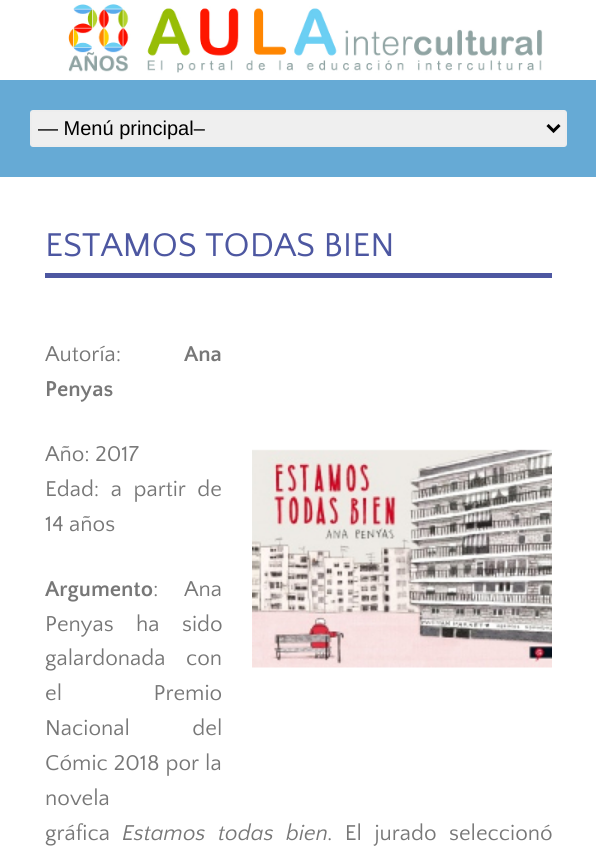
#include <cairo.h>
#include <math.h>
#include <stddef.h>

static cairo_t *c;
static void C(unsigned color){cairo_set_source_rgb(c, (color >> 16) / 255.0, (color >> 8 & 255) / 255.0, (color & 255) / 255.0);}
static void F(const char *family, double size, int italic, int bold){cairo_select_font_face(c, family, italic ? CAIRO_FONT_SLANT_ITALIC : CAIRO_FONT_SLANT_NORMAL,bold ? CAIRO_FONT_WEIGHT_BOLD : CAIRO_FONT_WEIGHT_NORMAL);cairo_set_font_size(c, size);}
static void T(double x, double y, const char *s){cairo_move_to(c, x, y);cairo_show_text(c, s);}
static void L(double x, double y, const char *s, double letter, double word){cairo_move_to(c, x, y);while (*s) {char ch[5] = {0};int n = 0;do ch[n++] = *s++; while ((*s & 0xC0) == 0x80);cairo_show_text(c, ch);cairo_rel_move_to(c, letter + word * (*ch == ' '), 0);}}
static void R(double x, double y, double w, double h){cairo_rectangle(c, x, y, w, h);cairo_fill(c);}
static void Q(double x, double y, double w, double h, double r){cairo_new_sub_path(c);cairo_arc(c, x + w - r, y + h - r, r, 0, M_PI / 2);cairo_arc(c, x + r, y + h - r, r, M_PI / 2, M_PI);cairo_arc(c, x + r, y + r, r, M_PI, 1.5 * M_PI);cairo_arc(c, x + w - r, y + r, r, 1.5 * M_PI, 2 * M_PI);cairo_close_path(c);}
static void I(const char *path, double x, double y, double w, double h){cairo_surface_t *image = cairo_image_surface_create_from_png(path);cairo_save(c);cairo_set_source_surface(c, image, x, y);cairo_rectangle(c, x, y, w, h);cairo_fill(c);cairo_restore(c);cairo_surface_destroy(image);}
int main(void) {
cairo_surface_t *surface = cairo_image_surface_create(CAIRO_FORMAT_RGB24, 596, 858);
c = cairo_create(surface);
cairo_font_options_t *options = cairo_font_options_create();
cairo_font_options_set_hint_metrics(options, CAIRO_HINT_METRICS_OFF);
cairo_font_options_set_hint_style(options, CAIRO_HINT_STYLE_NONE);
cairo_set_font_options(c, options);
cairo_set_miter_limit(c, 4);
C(0xffffff);
cairo_paint(c);
I("1.png",68,4,475,69);
C(0x66aad5);
R(0,80,596,97);
C(0xefefef);
Q(31,111,535,35,2);
cairo_fill_preserve(c);
C(0xededed);
cairo_stroke(c);
cairo_new_path(c);
cairo_move_to(c,547.5,125);
cairo_line_to(c,553.5,131);
cairo_line_to(c,559.5,125);
C(0x000000);
cairo_set_line_width(c,3);
cairo_stroke(c);
F("Liberation Sans",20,0,0);
T(38,135,"— Menú principal–");
C(0x4d57a1);
R(45,273,507,5);
F("Quattrocento Sans",34.5,0,0);
T(45,256,"ESTAMOS TODAS BIEN");
F("Quattrocento Sans",22.5,0,0);
C(0x777777);
T(45,361,"Autoría:");
F("Quattrocento Sans",22.5,0,1);
T(184,361,"Ana");
T(45,396,"Penyas");
I("2.png",252,449,300,219);
F("Quattrocento Sans",22.5,0,0);
T(45,461,"Año: 2017");
L(45,496,"Edad: a partir de",0,6);
T(45,531,"14 años");
F("Quattrocento Sans",22.5,0,1);
T(45,596,"Argumento");
F("Quattrocento Sans",22.5,0,0);
T(153,596,":");
T(184,596,"Ana");
L(45,631,"Penyas ha sido",0,17);
L(45,665,"galardonada con",0,15);
L(45,700,"el Premio",0,86);
L(45,735,"Nacional del",0,57);
L(45,770,"Cómic 2018 por la",0,.5);
T(45,805,"novela");
T(45,840,"gráfica");
F("Quattrocento Sans",22.5,1,0);
L(122,840,"Estamos todas bien",0,7);
F("Quattrocento Sans",22.5,0,0);
L(327,840,". El jurado seleccionó",0,7);
cairo_surface_write_to_png(surface, "o.png");
cairo_font_options_destroy(options);
cairo_destroy(c);
cairo_surface_destroy(surface);
return 0;
}
